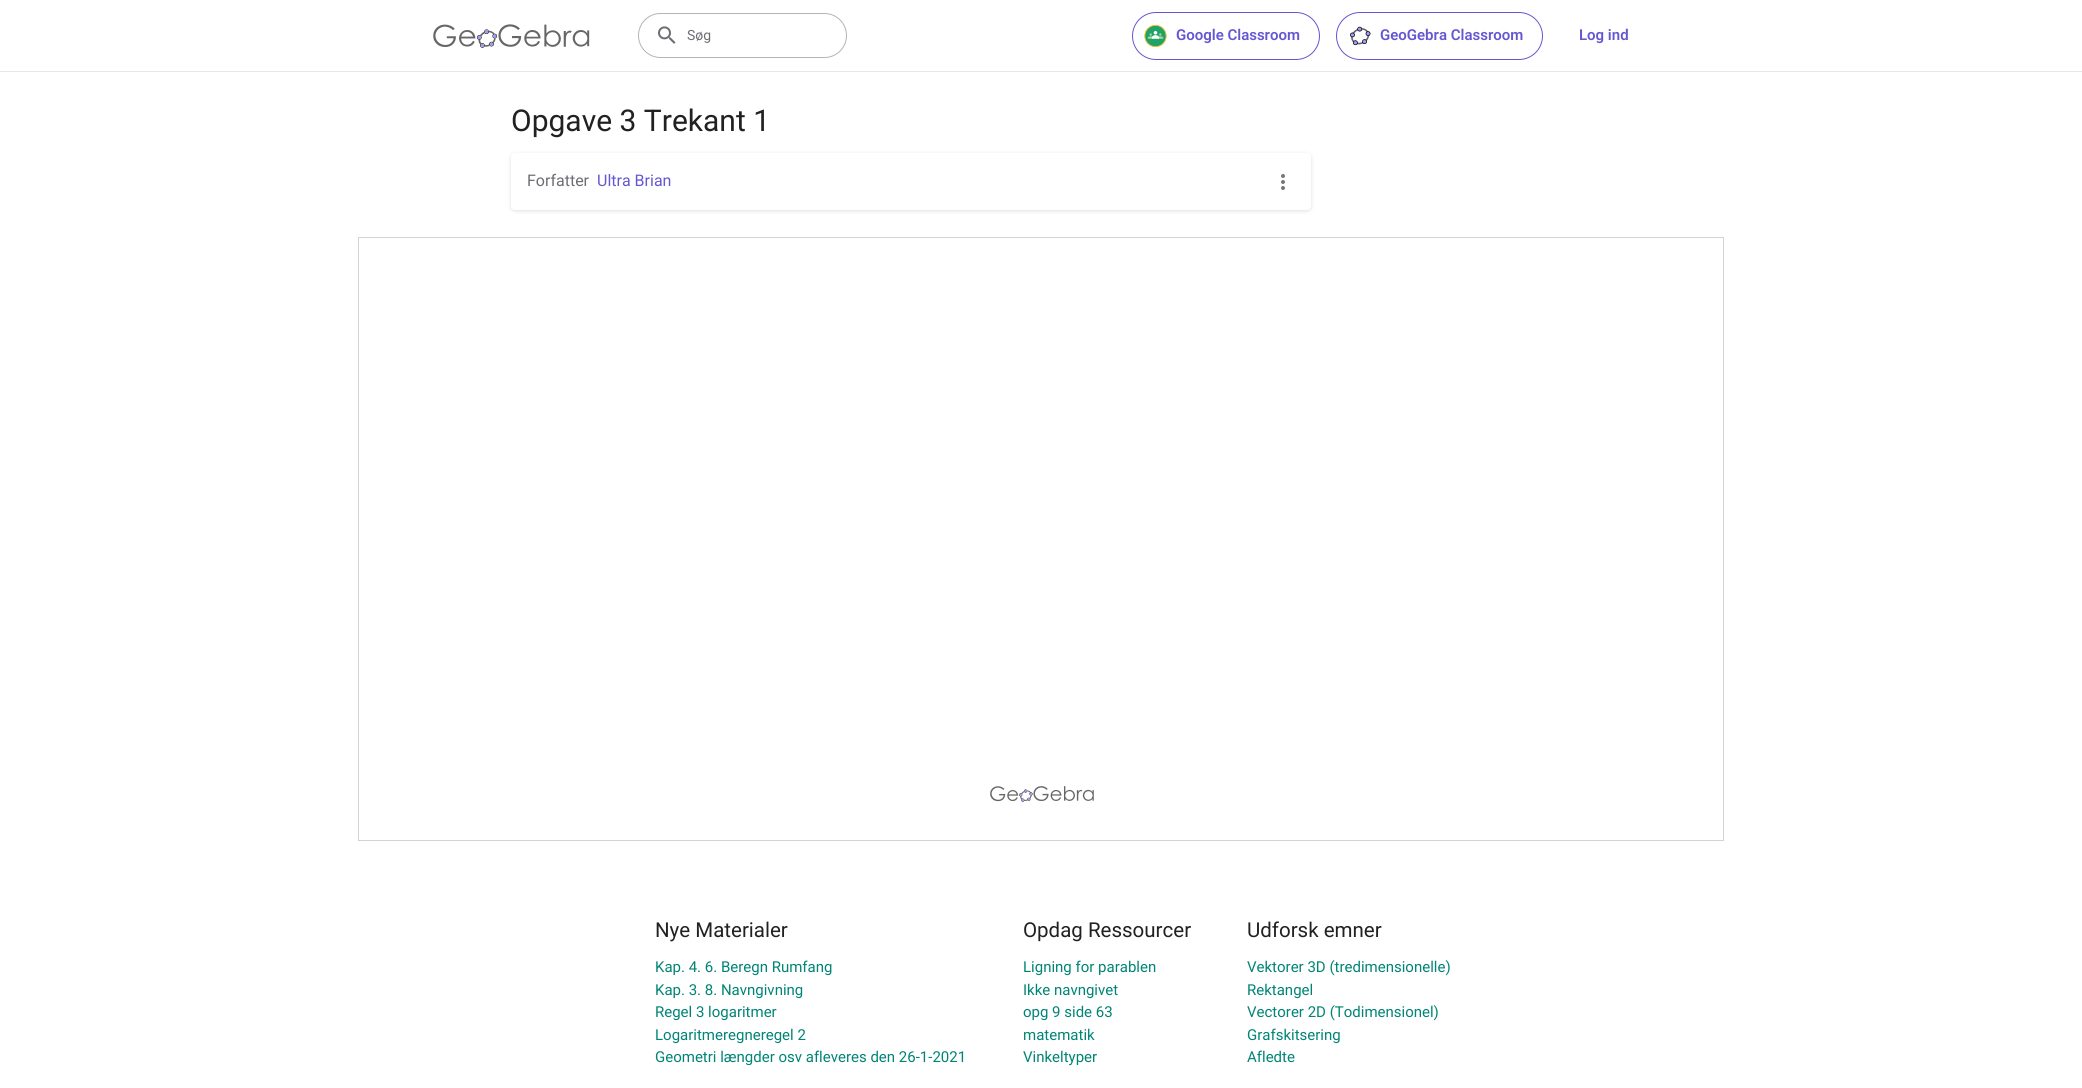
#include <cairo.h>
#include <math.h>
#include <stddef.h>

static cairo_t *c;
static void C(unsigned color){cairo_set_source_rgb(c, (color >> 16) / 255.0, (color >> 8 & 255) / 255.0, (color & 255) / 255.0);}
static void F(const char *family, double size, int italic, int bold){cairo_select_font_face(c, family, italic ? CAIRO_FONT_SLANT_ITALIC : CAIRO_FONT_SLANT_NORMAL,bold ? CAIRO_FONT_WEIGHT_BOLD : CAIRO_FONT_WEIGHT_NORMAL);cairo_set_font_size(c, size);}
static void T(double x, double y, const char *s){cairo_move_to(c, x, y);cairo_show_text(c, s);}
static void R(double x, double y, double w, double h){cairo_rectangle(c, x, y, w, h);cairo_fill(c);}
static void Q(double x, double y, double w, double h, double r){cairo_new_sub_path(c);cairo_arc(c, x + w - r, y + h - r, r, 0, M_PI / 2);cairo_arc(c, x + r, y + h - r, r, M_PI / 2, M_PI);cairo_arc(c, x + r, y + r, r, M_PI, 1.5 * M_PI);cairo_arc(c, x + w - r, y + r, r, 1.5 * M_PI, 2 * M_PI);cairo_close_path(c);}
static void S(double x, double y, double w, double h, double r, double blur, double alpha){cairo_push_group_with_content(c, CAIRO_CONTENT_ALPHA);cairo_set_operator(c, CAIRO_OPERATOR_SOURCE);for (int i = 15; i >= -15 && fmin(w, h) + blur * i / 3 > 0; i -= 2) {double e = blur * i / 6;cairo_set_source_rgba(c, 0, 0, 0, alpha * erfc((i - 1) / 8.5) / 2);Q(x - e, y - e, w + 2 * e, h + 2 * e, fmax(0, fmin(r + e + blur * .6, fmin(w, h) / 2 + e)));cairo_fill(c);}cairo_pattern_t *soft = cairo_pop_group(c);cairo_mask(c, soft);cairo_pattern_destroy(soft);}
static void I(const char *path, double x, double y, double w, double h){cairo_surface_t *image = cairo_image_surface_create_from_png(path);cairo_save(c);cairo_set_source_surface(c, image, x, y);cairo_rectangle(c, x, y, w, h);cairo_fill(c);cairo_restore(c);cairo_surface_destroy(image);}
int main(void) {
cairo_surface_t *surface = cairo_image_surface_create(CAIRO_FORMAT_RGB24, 2082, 1088);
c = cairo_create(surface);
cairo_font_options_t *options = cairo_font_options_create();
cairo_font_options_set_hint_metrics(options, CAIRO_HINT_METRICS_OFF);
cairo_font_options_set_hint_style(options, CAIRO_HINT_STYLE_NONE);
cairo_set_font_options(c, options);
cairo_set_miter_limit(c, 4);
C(0xffffff);
cairo_paint(c);
C(0xe6e6eb);
R(0,71,2082,1);
I("1.png",433,24,157,24);
Q(638.5,13.5,208,44,22);
C(0xb4b3ba);
cairo_set_line_width(c,1);
cairo_stroke(c);
I("2.png",658,26,18,18);
F("Roboto",14,0,0);
C(0x6e6d73);
T(687,40,"Søg");
Q(1132.5,12.5,187,47,23.5);
C(0x6557d2);
cairo_stroke(c);
I("3.png",1144,24,23,24);
F("Roboto SemiBold",15,0,0);
T(1176,40,"Google Classroom");
Q(1336.5,12.5,206,47,23.5);
cairo_stroke(c);
I("4.png",1350,26,21,20);
T(1380,40,"GeoGebra Classroom");
T(1579,40,"Log ind");
F("Roboto",30,0,0);
C(0x212121);
T(511,131,"Opgave 3 Trekant 1");
C(0x1c1c1f);
S(511,154,800,57,4,2,.14);
C(0xffffff);
Q(511,153,800,57,4);
cairo_fill(c);
F("Roboto",16,0,0);
C(0x6e6d73);
T(527,186,"Forfatter");
C(0x6557d2);
T(597,186,"Ultra Brian");
I("5.png",1281,174,4,16);
I("6.png",990,786,104,16);
cairo_rectangle(c,358.5,237.5,1365,603);
C(0xd3d3d3);
cairo_stroke(c);
F("Roboto",20.5,0,0);
C(0x212121);
T(655,937,"Nye Materialer");
F("Roboto",15,0,0);
C(0x008475);
T(655,972,"Kap. 4. 6. Beregn Rumfang");
T(655,995,"Kap. 3. 8. Navngivning");
T(655,1017,"Regel 3 logaritmer");
T(655,1040,"Logaritmeregneregel 2");
T(655,1062,"Geometri længder osv afleveres den 26-1-2021");
F("Roboto",20.5,0,0);
C(0x212121);
T(1023,937,"Opdag Ressourcer");
F("Roboto",15,0,0);
C(0x008475);
T(1023,972,"Ligning for parablen");
T(1023,995,"Ikke navngivet");
T(1023,1017,"opg 9 side 63");
T(1023,1040,"matematik");
T(1023,1062,"Vinkeltyper");
F("Roboto",20.5,0,0);
C(0x212121);
T(1247,937,"Udforsk emner");
F("Roboto",15,0,0);
C(0x008475);
T(1247,972,"Vektorer 3D (tredimensionelle)");
T(1247,995,"Rektangel");
T(1247,1017,"Vectorer 2D (Todimensionel)");
T(1247,1040,"Grafskitsering");
T(1247,1062,"Afledte");
cairo_surface_write_to_png(surface, "o.png");
cairo_font_options_destroy(options);
cairo_destroy(c);
cairo_surface_destroy(surface);
return 0;
}
